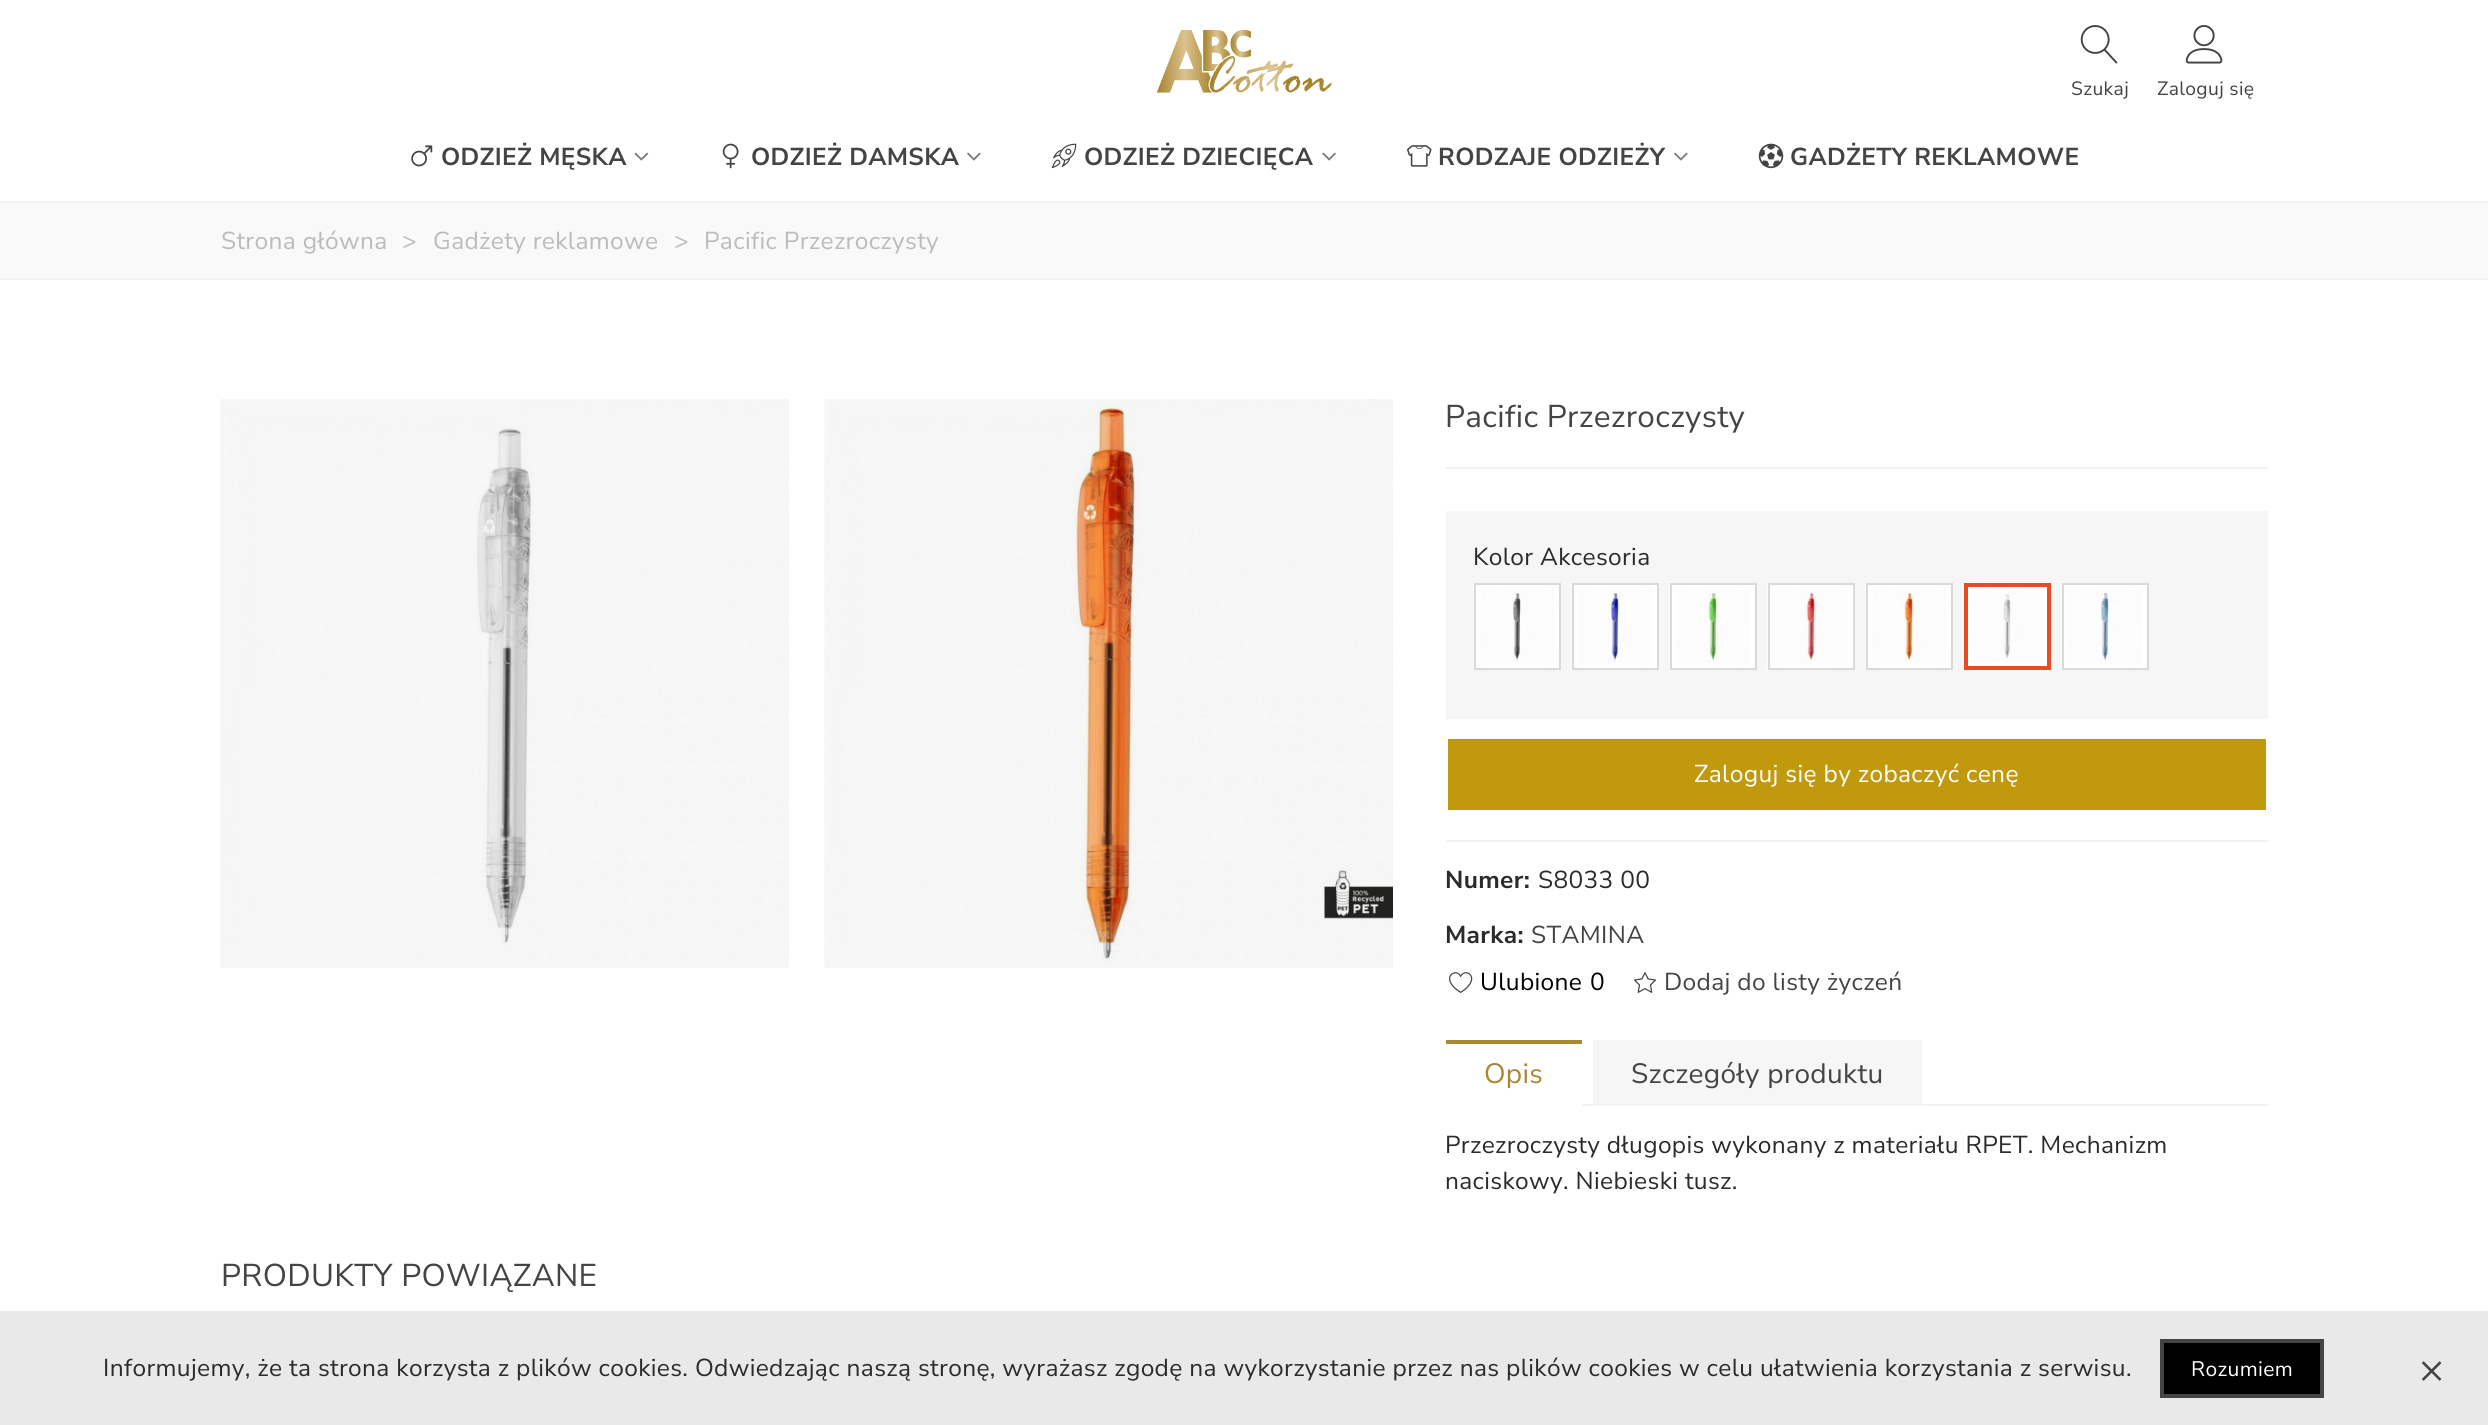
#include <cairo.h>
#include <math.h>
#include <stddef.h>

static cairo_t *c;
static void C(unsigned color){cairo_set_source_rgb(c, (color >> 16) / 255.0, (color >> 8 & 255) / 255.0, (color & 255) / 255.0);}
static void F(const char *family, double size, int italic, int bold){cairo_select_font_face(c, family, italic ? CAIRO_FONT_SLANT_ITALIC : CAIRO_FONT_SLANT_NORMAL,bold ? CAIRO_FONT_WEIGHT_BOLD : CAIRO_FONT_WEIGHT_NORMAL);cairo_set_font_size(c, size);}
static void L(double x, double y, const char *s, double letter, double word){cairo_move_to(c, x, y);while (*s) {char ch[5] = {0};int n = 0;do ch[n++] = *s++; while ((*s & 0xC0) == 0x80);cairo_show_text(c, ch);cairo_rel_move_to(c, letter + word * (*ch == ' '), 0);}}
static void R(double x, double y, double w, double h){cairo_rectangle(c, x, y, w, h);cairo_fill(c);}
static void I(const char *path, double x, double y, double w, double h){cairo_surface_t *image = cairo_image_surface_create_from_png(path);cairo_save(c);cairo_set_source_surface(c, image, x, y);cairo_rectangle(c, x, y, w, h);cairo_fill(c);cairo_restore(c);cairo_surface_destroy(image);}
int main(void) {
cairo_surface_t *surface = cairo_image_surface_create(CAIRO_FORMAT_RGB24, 2488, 1425);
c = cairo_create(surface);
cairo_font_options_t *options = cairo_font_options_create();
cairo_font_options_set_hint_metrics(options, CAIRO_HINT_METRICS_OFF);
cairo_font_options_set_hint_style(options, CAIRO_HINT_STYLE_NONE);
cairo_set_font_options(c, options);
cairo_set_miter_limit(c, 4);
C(0xffffff);
cairo_paint(c);
I("1.png",1157,30,175,63);
I("2.png",2080,25,38,39);
F("Nunito Sans",19.25,0,0);
C(0x444444);
L(2071,95,"Szukaj",.35,0);
I("3.png",2185,25,38,39);
L(2157,95,"Zaloguj się",.35,0);
I("4.png",411,145,22,22);
F("Nunito Sans",24.5,0,1);
L(441,165,"ODZIEŻ MĘSKA",.35,0);
I("5.png",634,152,15,9);
I("6.png",722,143,17,26);
L(751,165,"ODZIEŻ DAMSKA",.35,0);
I("7.png",967,152,14,9);
I("8.png",1051,143,26,26);
L(1084,165,"ODZIEŻ DZIECIĘCA",.35,0);
I("9.png",1322,152,14,9);
I("10.png",1407,145,25,22);
L(1438,165,"RODZAJE ODZIEŻY",.35,0);
I("7.png",1674,152,14,9);
I("11.png",1758,143,26,26);
L(1790,165,"GADŻETY REKLAMOWE",.35,0);
C(0xf9f9f9);
R(0,203,2488,75);
C(0xf3f3f3);
R(0,201,2488,2);
R(0,278,2488,2);
F("Nunito Sans",24.5,0,0);
C(0xbbbbbb);
L(221,249,"Strona główna",.35,0);
L(402,249,">",.35,0);
L(433,249,"Gadżety reklamowe",.35,0);
L(674,249,">",.35,0);
L(704,249,"Pacific Przezroczysty",.35,0);
I("12.png",220,399,569,569);
I("13.png",824,399,569,569);
F("Nunito Sans",31.5,0,0);
C(0x444444);
L(1445,427,"Pacific Przezroczysty",.35,0);
C(0xf2f2f2);
R(1446,467,822,2);
C(0xf6f6f6);
R(1446,511,822,208);
F("Nunito Sans",24.5,0,0);
C(0x2b2b2b);
L(1473,565,"Kolor Akcesoria",.35,0);
I("14.png",1473,583,86,87);
cairo_rectangle(c,1475,584,85,85);
C(0xd9d9d9);
cairo_stroke(c);
I("15.png",1571,583,86,87);
cairo_rectangle(c,1573,584,85,85);
cairo_stroke(c);
I("16.png",1669,583,86,87);
cairo_rectangle(c,1671,584,85,85);
cairo_stroke(c);
I("17.png",1767,583,86,87);
cairo_rectangle(c,1769,584,85,85);
cairo_stroke(c);
I("18.png",1865,583,86,87);
cairo_rectangle(c,1867,584,85,85);
cairo_stroke(c);
I("19.png",1963,583,84,87);
cairo_rectangle(c,1966,585,83,83);
C(0xe54d26);
cairo_set_line_width(c,4);
cairo_stroke(c);
I("20.png",2061,583,86,87);
cairo_rectangle(c,2063,584,85,85);
C(0xd9d9d9);
cairo_set_line_width(c,2);
cairo_stroke(c);
C(0xc0990d);
R(1448,739,818,71);
C(0xffffff);
L(1694,782,"Zaloguj się by zobaczyć cenę",.35,0);
C(0xf2f2f2);
R(1446,840,822,2);
F("Nunito Sans",24.5,0,1);
C(0x2b2b2b);
L(1445,888,"Numer:",.35,0);
F("Nunito Sans",24.5,0,0);
L(1538,888,"S8033 00",.35,0);
F("Nunito Sans",24.5,0,1);
L(1445,943,"Marka:",.35,0);
F("Nunito Sans",24.5,0,0);
C(0x444444);
L(1531,943,"STAMINA",.35,0);
I("21.png",1449,972,24,21);
C(0x000000);
L(1480,990,"Ulubione",.35,0);
L(1590,990,"0",.35,0);
I("22.png",1634,972,22,21);
C(0x444444);
L(1664,990,"Dodaj do listy życzeń",.35,0);
C(0xf2f2f2);
R(1582,1104,686,2);
C(0xa98834);
R(1446,1040,136,4);
F("Nunito Sans",28,0,0);
L(1484,1083,"Opis",.35,0);
C(0xf6f6f6);
R(1593,1040,329,66);
C(0x444444);
L(1631,1083,"Szczegóły produktu",.35,0);
F("Nunito Sans",24.5,0,0);
C(0x2b2b2b);
L(1445,1153,"Przezroczysty długopis wykonany z materiału RPET. Mechanizm",.35,0);
L(1445,1189,"naciskowy. Niebieski tusz.",.35,0);
F("Nunito Sans",31.5,0,0);
C(0x444444);
L(221,1286,"PRODUKTY POWIĄZANE",.35,0);
C(0xe9e9e9);
R(0,1311,2488,114);
F("Nunito Sans",24.5,0,0);
C(0x2b2b2b);
L(103,1376,"Informujemy, że ta strona korzysta z plików cookies. Odwiedzając naszą stronę, wyrażasz zgodę na wykorzystanie przez nas plików cookies w celu ułatwienia korzystania z serwisu.",.35,0);
C(0x000000);
cairo_rectangle(c,2162,1341,160,55);
cairo_fill_preserve(c);
C(0x444444);
cairo_set_line_width(c,4);
cairo_stroke(c);
F("Nunito Sans",21,0,0);
C(0xffffff);
L(2191,1376,"Rozumiem",.35,0);
F("Nunito Sans",42,0,0);
C(0x444444);
L(2419,1383,"×",.35,0);
cairo_surface_write_to_png(surface, "o.png");
cairo_font_options_destroy(options);
cairo_destroy(c);
cairo_surface_destroy(surface);
return 0;
}
